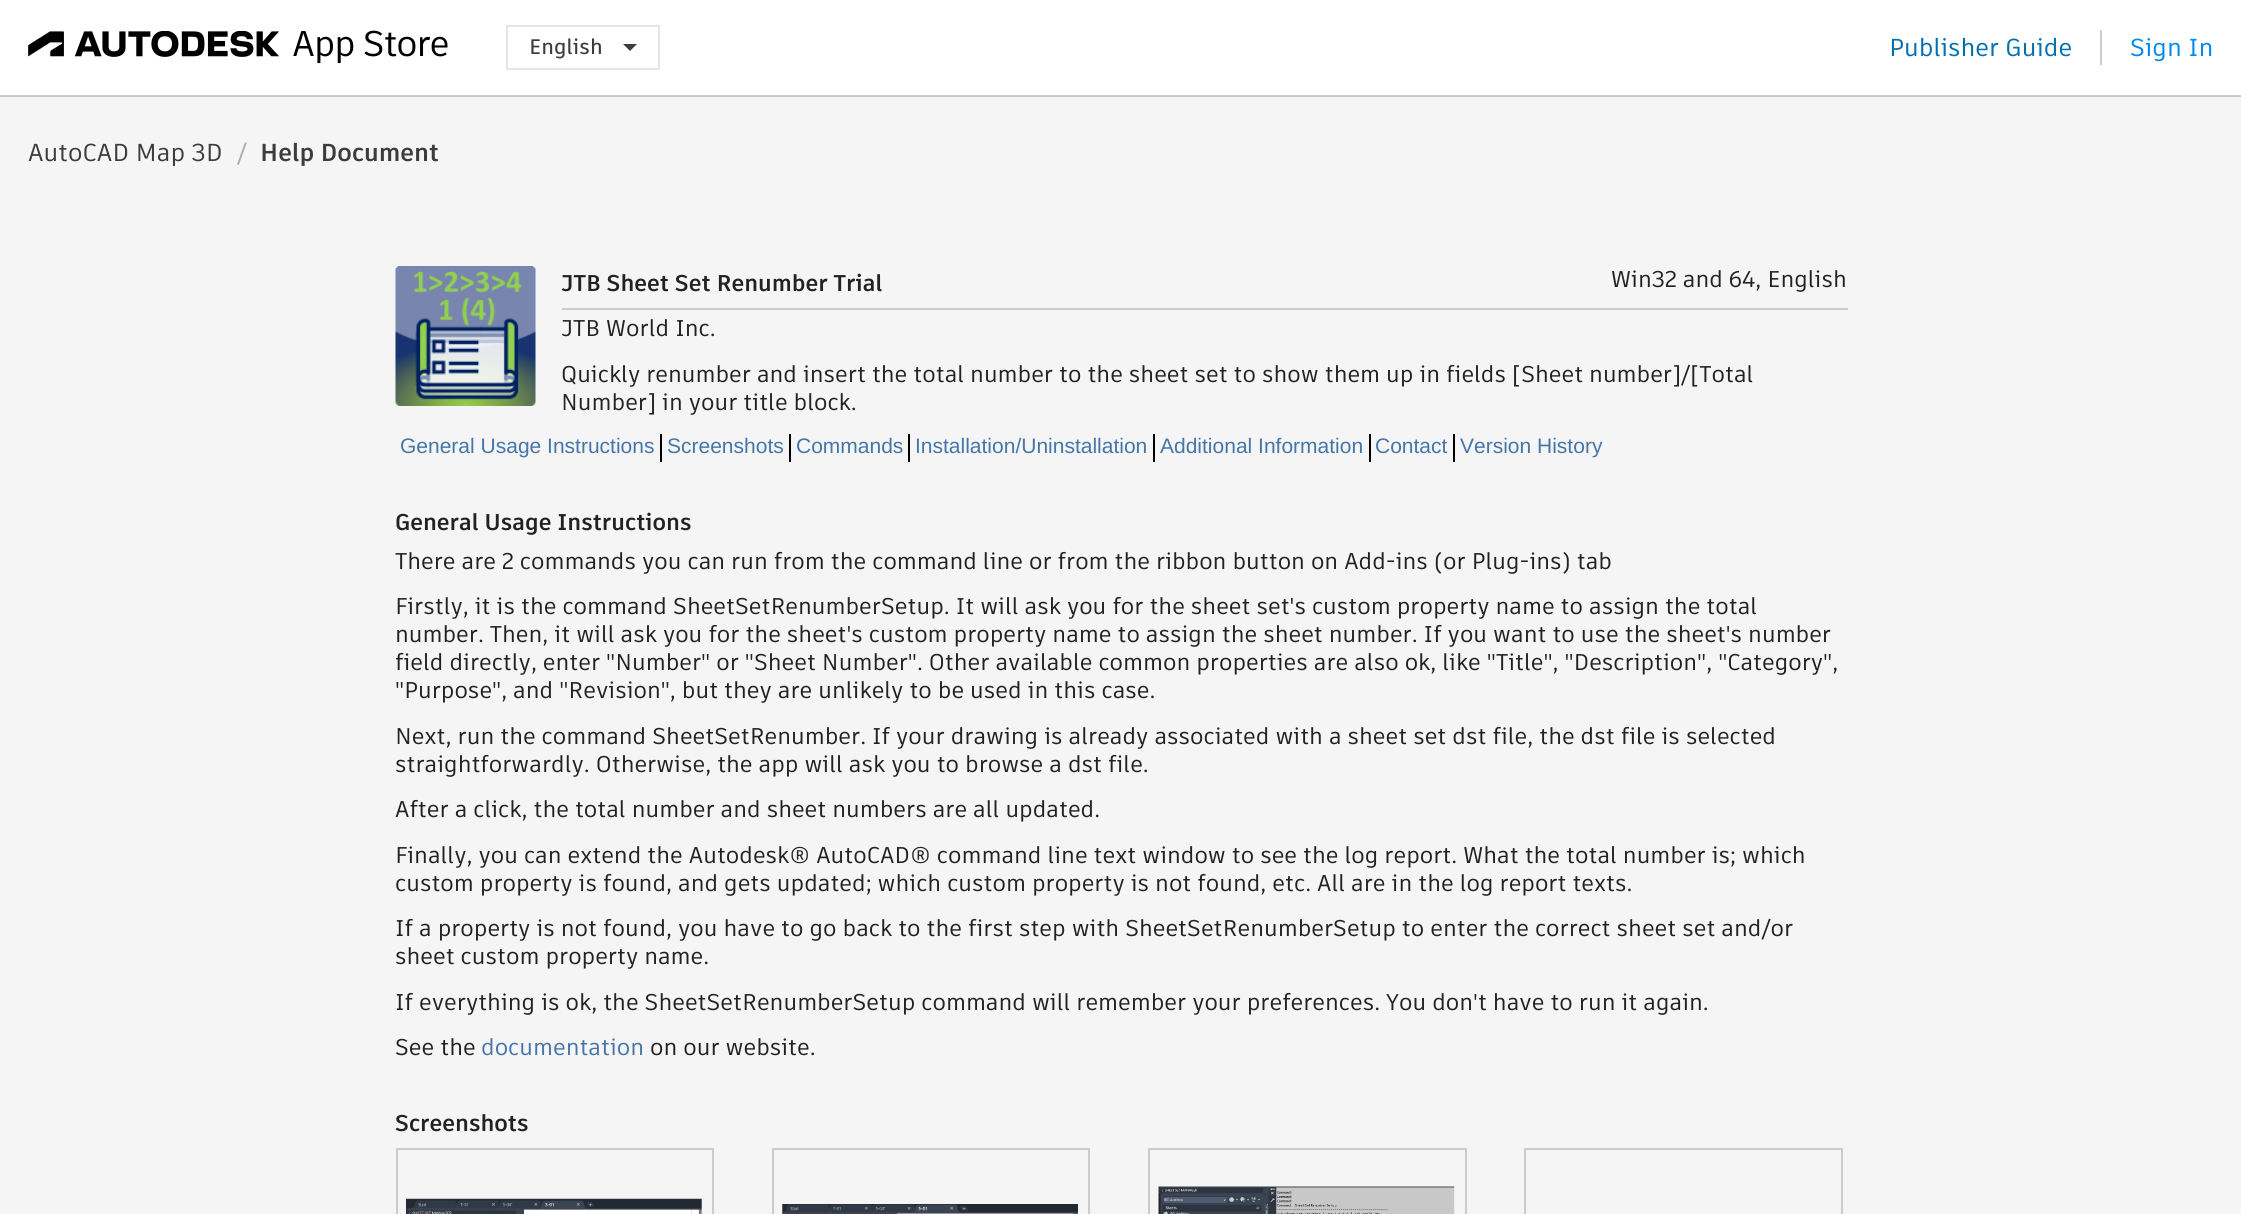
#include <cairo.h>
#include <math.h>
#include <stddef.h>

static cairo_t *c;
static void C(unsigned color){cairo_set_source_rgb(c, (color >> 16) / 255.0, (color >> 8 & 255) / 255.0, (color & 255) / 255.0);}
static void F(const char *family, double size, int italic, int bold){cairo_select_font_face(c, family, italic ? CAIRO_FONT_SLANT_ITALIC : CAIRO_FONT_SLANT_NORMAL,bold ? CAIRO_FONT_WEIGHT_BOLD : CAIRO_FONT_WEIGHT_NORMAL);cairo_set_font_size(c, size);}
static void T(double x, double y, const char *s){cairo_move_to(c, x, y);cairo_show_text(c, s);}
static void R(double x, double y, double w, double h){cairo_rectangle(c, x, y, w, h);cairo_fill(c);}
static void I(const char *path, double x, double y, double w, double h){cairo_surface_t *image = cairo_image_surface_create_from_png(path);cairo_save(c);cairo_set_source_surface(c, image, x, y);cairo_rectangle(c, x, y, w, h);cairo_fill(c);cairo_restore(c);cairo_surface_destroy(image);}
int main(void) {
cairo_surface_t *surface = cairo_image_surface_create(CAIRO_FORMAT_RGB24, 2241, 1214);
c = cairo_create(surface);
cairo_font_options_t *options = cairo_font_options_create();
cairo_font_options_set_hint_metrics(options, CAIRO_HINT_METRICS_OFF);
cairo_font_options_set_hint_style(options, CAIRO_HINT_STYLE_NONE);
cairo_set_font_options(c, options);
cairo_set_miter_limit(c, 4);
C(0xf5f5f5);
cairo_paint(c);
C(0xc7c7c7);
R(0,96,2241,1);
C(0xffffff);
R(0,0,2241,95);
C(0xcecece);
R(0,95,2241,1);
I("1.png",28,30,420,34);
cairo_rectangle(c,507,26,152,43);
C(0xe6e6e6);
cairo_stroke(c);
F("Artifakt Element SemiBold",21,0,0);
C(0x3c3c3c);
T(529,54,"English");
cairo_new_path(c);
cairo_move_to(c,623,44);
cairo_line_to(c,637,44);
cairo_line_to(c,630,51);
cairo_close_path(c);
cairo_fill(c);
C(0xcecece);
R(2100,30,2,35);
F("Artifakt Element Medium",24.5,0,0);
C(0x006eaf);
T(1889,56,"Publisher Guide");
C(0x0088ee);
T(2130,56,"Sign In");
C(0x3c3c3c);
T(28,161,"AutoCAD Map 3D");
C(0xababab);
T(237,161,"/");
F("Artifakt Element",24.5,0,1);
C(0x3c3c3c);
T(260,161,"Help Document");
I("2.png",395,266,141,140);
F("Artifakt Element",22.75,0,1);
C(0x222222);
T(561,291,"JTB Sheet Set Renumber Trial");
F("Artifakt Element Medium",22.75,0,0);
T(1611,287,"Win32 and 64, English");
C(0xcccccc);
R(562,308,1286,2);
C(0x222222);
T(561,336,"JTB World Inc.");
T(561,382,"Quickly renumber and insert the total number to the sheet set to show them up in fields [Sheet number]/[Total");
T(561,410,"Number] in your title block.");
C(0x000000);
R(660,434,2,28);
F("Liberation Sans",21,0,0);
C(0x4675a8);
T(400,453,"General Usage Instructions");
C(0x000000);
R(789,434,2,28);
C(0x4675a8);
T(667,453,"Screenshots");
C(0x000000);
R(908,434,2,28);
C(0x4675a8);
T(796,453,"Commands");
C(0x000000);
R(1153,434,2,28);
C(0x4675a8);
T(915,453,"Installation/Uninstallation");
C(0x000000);
R(1369,434,2,28);
C(0x4675a8);
T(1160,453,"Additional Information");
C(0x000000);
R(1453,434,2,28);
C(0x4675a8);
T(1375,453,"Contact");
T(1460,453,"Version History");
F("Artifakt Element",22.75,0,1);
C(0x222222);
T(395,530,"General Usage Instructions");
F("Artifakt Element Medium",22.75,0,0);
T(395,569,"There are 2 commands you can run from the command line or from the ribbon button on Add-ins (or Plug-ins) tab");
T(395,614,"Firstly, it is the command SheetSetRenumberSetup. It will ask you for the sheet set's custom property name to assign the total");
T(395,642,"number. Then, it will ask you for the sheet's custom property name to assign the sheet number. If you want to use the sheet's number");
T(395,670,"field directly, enter \"Number\" or \"Sheet Number\". Other available common properties are also ok, like \"Title\", \"Description\", \"Category\",");
T(395,698,"\"Purpose\", and \"Revision\", but they are unlikely to be used in this case.");
T(395,744,"Next, run the command SheetSetRenumber. If your drawing is already associated with a sheet set dst file, the dst file is selected");
T(395,772,"straightforwardly. Otherwise, the app will ask you to browse a dst file.");
T(395,817,"After a click, the total number and sheet numbers are all updated.");
T(395,863,"Finally, you can extend the Autodesk® AutoCAD® command line text window to see the log report. What the total number is; which");
T(395,891,"custom property is found, and gets updated; which custom property is not found, etc. All are in the log report texts.");
T(395,936,"If a property is not found, you have to go back to the first step with SheetSetRenumberSetup to enter the correct sheet set and/or");
T(395,964,"sheet custom property name.");
T(395,1010,"If everything is ok, the SheetSetRenumberSetup command will remember your preferences. You don't have to run it again.");
T(395,1055,"See the");
C(0x4675a8);
T(481,1055,"documentation");
C(0x222222);
T(650,1055,"on our website.");
F("Artifakt Element",22.75,0,1);
T(395,1131,"Screenshots");
cairo_rectangle(c,397,1149,316,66);
C(0xcccccc);
cairo_stroke(c);
I("3.png",406,1198,296,16);
cairo_rectangle(c,773,1149,316,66);
cairo_stroke(c);
I("4.png",782,1204,296,10);
cairo_rectangle(c,1149,1149,317,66);
cairo_stroke(c);
I("5.png",1158,1186,297,28);
cairo_rectangle(c,1525,1149,317,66);
cairo_stroke(c);
cairo_surface_write_to_png(surface, "o.png");
cairo_font_options_destroy(options);
cairo_destroy(c);
cairo_surface_destroy(surface);
return 0;
}
